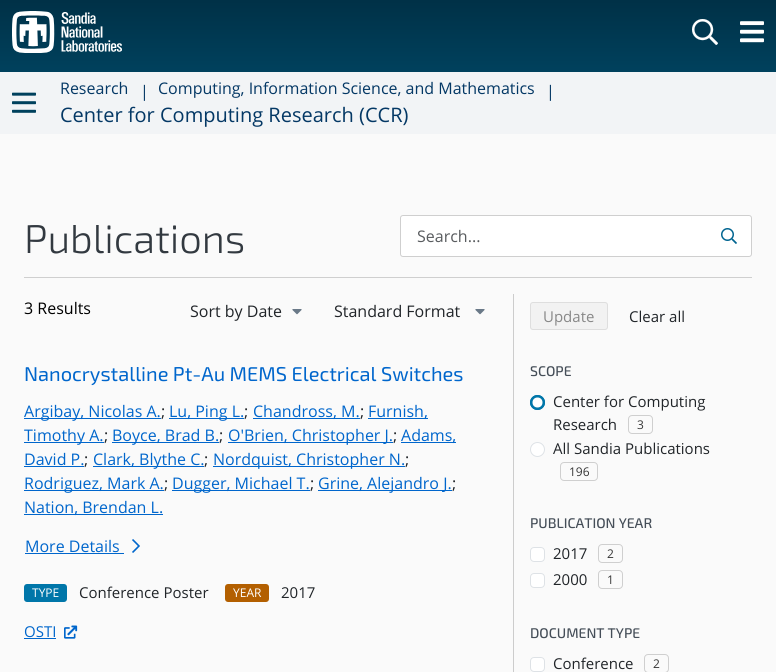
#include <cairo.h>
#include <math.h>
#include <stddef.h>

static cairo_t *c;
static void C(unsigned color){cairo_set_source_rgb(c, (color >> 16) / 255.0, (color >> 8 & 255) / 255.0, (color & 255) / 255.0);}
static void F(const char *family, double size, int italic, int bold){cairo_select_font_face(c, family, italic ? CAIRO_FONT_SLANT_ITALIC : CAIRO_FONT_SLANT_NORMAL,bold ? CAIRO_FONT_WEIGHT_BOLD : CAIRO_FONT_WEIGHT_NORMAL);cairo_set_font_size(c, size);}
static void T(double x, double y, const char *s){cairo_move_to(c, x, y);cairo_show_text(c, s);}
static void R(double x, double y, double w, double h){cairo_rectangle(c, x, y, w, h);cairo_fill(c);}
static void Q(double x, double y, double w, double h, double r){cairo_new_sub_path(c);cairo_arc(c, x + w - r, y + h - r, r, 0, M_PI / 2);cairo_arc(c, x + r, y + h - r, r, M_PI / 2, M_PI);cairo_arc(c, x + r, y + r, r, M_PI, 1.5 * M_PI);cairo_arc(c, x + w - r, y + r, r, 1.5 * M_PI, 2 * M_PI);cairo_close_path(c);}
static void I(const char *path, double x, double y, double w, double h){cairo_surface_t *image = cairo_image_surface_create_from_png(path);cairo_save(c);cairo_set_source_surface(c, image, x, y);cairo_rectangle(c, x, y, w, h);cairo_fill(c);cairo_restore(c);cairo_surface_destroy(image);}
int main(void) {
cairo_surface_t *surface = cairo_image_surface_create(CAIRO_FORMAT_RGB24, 776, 672);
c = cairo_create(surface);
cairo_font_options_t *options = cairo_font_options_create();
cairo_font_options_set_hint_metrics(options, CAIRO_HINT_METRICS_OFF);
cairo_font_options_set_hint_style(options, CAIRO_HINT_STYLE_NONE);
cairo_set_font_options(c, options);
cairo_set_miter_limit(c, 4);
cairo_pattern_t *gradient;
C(0xfafafa);
cairo_paint(c);
gradient = cairo_pattern_create_linear(388,-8,388,72);
cairo_pattern_add_color_stop_rgba(gradient,0,0,0.184,0.267,1);
cairo_pattern_add_color_stop_rgba(gradient,1,0,0.255,0.365,1);
cairo_set_source(c,gradient);
cairo_pattern_destroy(gradient);
R(0,0,776,72);
I("1.png",12,11,110,42);
I("2.png",692,19,26,26);
I("3.png",740,21,24,22);
C(0xf2f4f6);
R(0,72,776,62);
I("4.png",12,92,24,21);
F("Open Sans",16,0,0);
C(0x043865);
T(60,94,"Research");
T(140,97,"|");
T(158,94,"Computing, Information Science, and Mathematics");
T(546,97,"|");
F("Open Sans",20,0,0);
T(60,122,"Center for Computing Research (CCR)");
C(0xcfcfcf);
R(24,277,728,1);
F("Exo 2 Light",40,0,0);
C(0x323940);
T(24,253,"Publications");
C(0xffffff);
Q(400.5,215.5,351,41,2.5);
cairo_fill_preserve(c);
C(0xcfcfcf);
cairo_set_line_width(c,1);
cairo_stroke(c);
F("Open Sans",16,0,0);
C(0x595c5f);
T(417,242,"Search...");
I("5.png",721,228,16,16);
C(0x000000);
T(24,314,"3 Results");
I("6.png",292,309,10,6);
C(0x212529);
T(190,317,"Sort by Date");
I("6.png",475,309,10,6);
T(334,317,"Standard Format");
F("Exo 2",20,0,0);
C(0x0066cc);
T(24,381,"Nanocrystalline Pt-Au MEMS Electrical Switches");
R(24,418,137,1);
F("Open Sans",16,0,0);
T(24,417,"Argibay, Nicolas A.");
C(0x212529);
T(161,417,";");
C(0x0066cc);
R(169,418,75,1);
T(169,417,"Lu, Ping L.");
C(0x212529);
T(244,417,";");
C(0x0066cc);
R(253,418,107,1);
T(253,417,"Chandross, M.");
C(0x212529);
T(360,417,";");
C(0x0066cc);
R(368,418,60,1);
T(368,417,"Furnish,");
R(24,442,80,1);
T(24,441,"Timothy A.");
C(0x212529);
T(104,441,";");
C(0x0066cc);
R(112,442,107,1);
T(112,441,"Boyce, Brad B.");
C(0x212529);
T(219,441,";");
C(0x0066cc);
R(228,442,165,1);
T(228,441,"O'Brien, Christopher J.");
C(0x212529);
T(393,441,";");
C(0x0066cc);
R(401,442,55,1);
T(401,441,"Adams,");
T(24,465,"David P.");
R(24,466,60,1);
C(0x212529);
T(84,465,";");
C(0x0066cc);
R(93,466,111,1);
T(93,465,"Clark, Blythe C.");
C(0x212529);
T(204,465,";");
C(0x0066cc);
R(213,466,192,1);
T(213,465,"Nordquist, Christopher N.");
C(0x212529);
T(405,465,";");
C(0x0066cc);
R(24,490,140,1);
T(24,489,"Rodriguez, Mark A.");
C(0x212529);
T(164,489,";");
C(0x0066cc);
R(172,490,138,1);
T(172,489,"Dugger, Michael T.");
C(0x212529);
T(310,489,";");
C(0x0066cc);
R(318,490,134,1);
T(318,489,"Grine, Alejandro J.");
C(0x212529);
T(452,489,";");
C(0x0066cc);
R(24,514,139,1);
T(24,513,"Nation, Brendan L.");
T(25,552,"More Details");
R(25,553,99,1);
I("7.png",132,539,8,14);
C(0x0076a9);
Q(24,584,43,18,3);
cairo_fill(c);
F("Open Sans",12,0,0);
C(0xffffff);
T(32,597,"TYPE");
F("Open Sans",15,0,0);
C(0x212529);
T(79,598,"Conference Poster");
C(0xb35f00);
Q(225,584,44,18,3);
cairo_fill(c);
F("Open Sans",12,0,0);
C(0xffffff);
T(233,597,"YEAR");
F("Open Sans",15,0,0);
C(0x212529);
T(281,598,"2017");
C(0x0066cc);
T(24,637,"OSTI");
R(24,638,32,1);
I("8.png",64,625,14,14);
C(0xcccccc);
R(513,294,1,378);
C(0xf2f2f2);
Q(530.5,302.5,77,27,2.5);
cairo_fill_preserve(c);
C(0xdedede);
cairo_stroke(c);
C(0x888888);
T(543,322,"Update");
C(0x212529);
T(629,322,"Clear all");
F("Exo 2 Medium",14,0,0);
C(0x454e58);
T(530,376,"SCOPE");
C(0x0076a9);
cairo_new_path(c);
cairo_arc(c,537.5,402.5,7.5,0,2 * M_PI);
cairo_fill(c);
C(0xffffff);
cairo_arc(c,537.5,402.5,5,0,2 * M_PI);
cairo_fill(c);
cairo_arc(c,537.5,402.5,7,0,2 * M_PI);
C(0x0076a9);
cairo_stroke(c);
F("Open Sans",15,0,0);
C(0x212529);
T(553,407,"Center for Computing");
T(553,430,"Research");
F("Open Sans",12,0,0);
C(0x363636);
T(637,429,"3");
Q(628.5,415.5,24,18,3.5);
C(0xcfcfcf);
cairo_stroke(c);
C(0xffffff);
cairo_arc(c,537.5,449.5,7,0,2 * M_PI);
cairo_fill_preserve(c);
C(0xdee2e6);
cairo_stroke(c);
F("Open Sans",15,0,0);
C(0x212529);
T(553,454,"All Sandia Publications");
F("Open Sans",12,0,0);
C(0x363636);
T(569,476,"196");
Q(560.5,462.5,37,18,3.5);
C(0xcfcfcf);
cairo_stroke(c);
F("Exo 2 Medium",14,0,0);
C(0x454e58);
T(530,528,"PUBLICATION YEAR");
C(0xffffff);
Q(530.5,547.5,14,14,3.5);
cairo_fill_preserve(c);
C(0xdee2e6);
cairo_stroke(c);
F("Open Sans",15,0,0);
C(0x212529);
T(553,559,"2017");
F("Open Sans",12,0,0);
C(0x363636);
T(607,558,"2");
Q(598.5,544.5,24,18,3.5);
C(0xcfcfcf);
cairo_stroke(c);
C(0xffffff);
Q(530.5,573.5,14,14,3.5);
cairo_fill_preserve(c);
C(0xdee2e6);
cairo_stroke(c);
F("Open Sans",15,0,0);
C(0x212529);
T(553,585,"2000");
F("Open Sans",12,0,0);
C(0x363636);
T(607,584,"1");
Q(598.5,570.5,24,18,3.5);
C(0xcfcfcf);
cairo_stroke(c);
F("Exo 2 Medium",14,0,0);
C(0x454e58);
T(530,638,"DOCUMENT TYPE");
C(0xffffff);
Q(530.5,657.5,14,14,3.5);
cairo_fill_preserve(c);
C(0xdee2e6);
cairo_stroke(c);
F("Open Sans",15,0,0);
C(0x212529);
T(553,669,"Conference");
F("Open Sans",12,0,0);
C(0x363636);
T(653,668,"2");
Q(644.5,654.5,24,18,3.5);
C(0xcfcfcf);
cairo_stroke(c);
cairo_surface_write_to_png(surface, "o.png");
cairo_font_options_destroy(options);
cairo_destroy(c);
cairo_surface_destroy(surface);
return 0;
}
